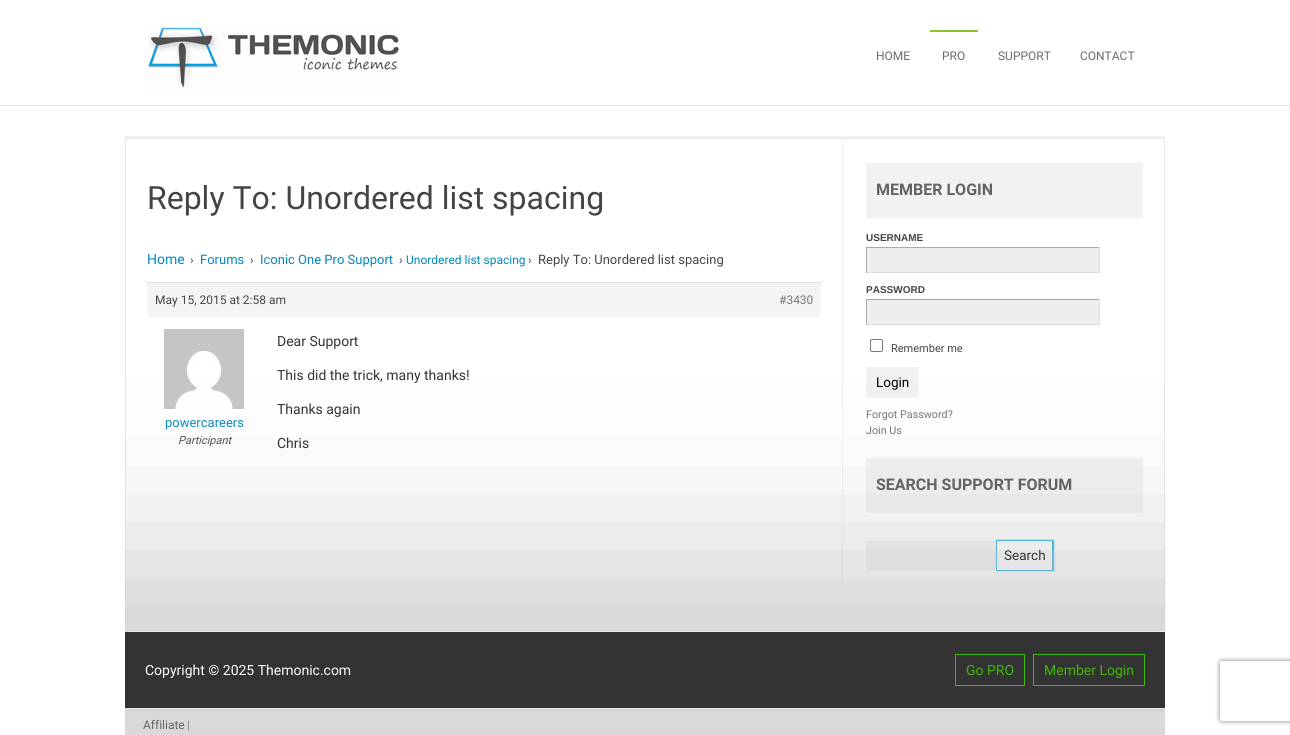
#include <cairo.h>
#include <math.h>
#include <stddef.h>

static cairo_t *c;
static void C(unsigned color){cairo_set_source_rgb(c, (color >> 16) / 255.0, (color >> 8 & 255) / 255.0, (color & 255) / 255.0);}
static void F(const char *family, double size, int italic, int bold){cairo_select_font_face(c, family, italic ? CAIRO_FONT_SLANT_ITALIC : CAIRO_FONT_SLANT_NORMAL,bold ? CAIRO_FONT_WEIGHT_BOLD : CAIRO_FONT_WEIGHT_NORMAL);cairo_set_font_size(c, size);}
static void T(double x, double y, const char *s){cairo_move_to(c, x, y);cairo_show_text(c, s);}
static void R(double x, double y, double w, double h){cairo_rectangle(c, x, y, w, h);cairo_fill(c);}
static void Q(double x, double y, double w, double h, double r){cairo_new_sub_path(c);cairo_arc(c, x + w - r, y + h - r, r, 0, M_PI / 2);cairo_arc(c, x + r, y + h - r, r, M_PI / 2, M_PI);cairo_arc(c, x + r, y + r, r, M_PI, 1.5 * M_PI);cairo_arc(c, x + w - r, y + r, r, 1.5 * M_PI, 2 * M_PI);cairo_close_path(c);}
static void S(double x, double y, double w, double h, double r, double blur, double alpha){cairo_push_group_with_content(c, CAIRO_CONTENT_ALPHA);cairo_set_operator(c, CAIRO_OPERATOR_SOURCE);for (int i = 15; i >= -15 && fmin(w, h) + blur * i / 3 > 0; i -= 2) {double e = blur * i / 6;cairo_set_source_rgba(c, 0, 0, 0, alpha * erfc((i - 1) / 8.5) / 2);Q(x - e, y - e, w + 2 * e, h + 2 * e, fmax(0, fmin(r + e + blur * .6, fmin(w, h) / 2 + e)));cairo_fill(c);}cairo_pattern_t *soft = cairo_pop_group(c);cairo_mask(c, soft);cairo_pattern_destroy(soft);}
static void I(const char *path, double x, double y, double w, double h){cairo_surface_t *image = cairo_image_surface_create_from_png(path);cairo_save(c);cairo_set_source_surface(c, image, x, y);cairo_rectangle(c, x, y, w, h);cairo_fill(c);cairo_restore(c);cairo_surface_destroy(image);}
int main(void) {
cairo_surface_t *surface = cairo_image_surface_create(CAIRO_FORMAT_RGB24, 1290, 735);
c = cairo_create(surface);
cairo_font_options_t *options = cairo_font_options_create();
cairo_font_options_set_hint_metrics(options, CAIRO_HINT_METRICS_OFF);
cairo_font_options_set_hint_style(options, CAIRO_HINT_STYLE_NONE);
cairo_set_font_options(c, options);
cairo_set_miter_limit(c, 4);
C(0xffffff);
cairo_paint(c);
C(0xe1e1e1);
R(0,105,1290,1);
I("1.png",148,27,251,63);
F("Roboto",12,0,0);
C(0x6a6a6a);
T(876,60,"HOME");
C(0x8ac327);
R(930,30,48,2);
C(0x6a6a6a);
T(942,60,"PRO");
T(998,60,"SUPPORT");
T(1080,60,"CONTACT");
C(0xf1f1f1);
R(125,136,1040,2);
cairo_rectangle(c,125.5,138.5,1039,492);
C(0xe9e9e9);
cairo_set_line_width(c,1);
cairo_stroke(c);
C(0xf1f1f1);
R(842,139,1,454);
F("Roboto",32,0,0);
C(0x444444);
T(147,209,"Reply To: Unordered list spacing");
F("Roboto",14,0,0);
C(0x0087bc);
T(147,264,"Home");
F("Roboto",12,0,0);
C(0x444444);
T(190,264,"›");
F("Roboto",13,0,0);
C(0x0087bc);
T(200,264,"Forums");
F("Roboto",12,0,0);
C(0x444444);
T(250,264,"›");
F("Roboto",13,0,0);
C(0x0087bc);
T(260,264,"Iconic One Pro Support");
F("Roboto",12,0,0);
C(0x444444);
T(399,264,"›");
C(0x0087bc);
T(406,264,"Unordered list spacing");
C(0x444444);
T(528,264,"›");
F("Roboto",13,0,0);
T(538,264,"Reply To: Unordered list spacing");
C(0xf4f4f4);
R(147,283,674,34);
C(0xdddddd);
R(147,282,674,1);
F("Roboto",12,0,0);
C(0x444444);
T(155,304,"May 15, 2015 at 2:58 am");
C(0x757575);
T(779,304,"#3430");
I("2.png",164,329,80,80);
F("Roboto",13,0,0);
C(0x0087bc);
T(165,427,"powercareers");
F("Roboto",11,1,0);
C(0x444444);
T(178,444,"Participant");
Q(870.5,339.5,12,12,1.5);
C(0x767676);
cairo_stroke(c);
C(0xf1f1f1);
R(866,367,53,31);
C(0xf2f2f2);
R(866,458,277,55);
C(0xf1f1f1);
R(866,541,130,29);
cairo_save(c);
cairo_set_fill_rule(c,CAIRO_FILL_RULE_EVEN_ODD);
cairo_new_path(c);
cairo_move_to(c,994,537);
cairo_line_to(c,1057,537);
cairo_line_to(c,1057,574);
cairo_line_to(c,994,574);
cairo_close_path(c);
cairo_move_to(c,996,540);
cairo_line_to(c,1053,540);
cairo_line_to(c,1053,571);
cairo_line_to(c,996,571);
cairo_close_path(c);
cairo_clip(c);
C(0x00a1e0);
S(997,540,57,31,0,.5,1);
cairo_restore(c);
cairo_rectangle(c,996.5,540.5,56,30);
C(0x00a1e0);
cairo_stroke(c);
cairo_save(c);
cairo_rectangle(c,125,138,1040,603);
cairo_clip(c);
C(0xcccccc);
S(55,564,1180,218,0,84,1);
cairo_restore(c);
F("Roboto",14,0,0);
C(0x333333);
T(277,346,"Dear Support");
T(277,380,"This did the trick, many thanks!");
T(277,414,"Thanks again");
T(277,448,"Chris");
C(0xf2f2f2);
R(866,163,277,55);
F("Roboto",16,0,1);
C(0x636363);
T(876,195,"MEMBER LOGIN");
F("Liberation Sans",10,0,1);
C(0x444444);
T(866,241,"USERNAME");
C(0xeeeeee);
R(867,248,232,24);
C(0xaaaaaa);
R(866,247,234,1);
C(0xdddddd);
R(1099,247,1,26);
R(866,272,234,1);
C(0xaaaaaa);
R(866,247,1,26);
C(0x444444);
T(866,293,"PASSWORD");
C(0xeeeeee);
R(867,300,232,24);
C(0xaaaaaa);
R(866,299,234,1);
C(0xdddddd);
R(1099,299,1,26);
R(866,324,234,1);
C(0xaaaaaa);
R(866,299,1,26);
F("Roboto",11,0,0);
C(0x444444);
T(891,352,"Remember me");
F("Roboto",13.5,0,0);
C(0x000000);
T(876,387,"Login");
F("Roboto",10.75,0,0);
C(0x757575);
T(866,418,"Forgot Password?");
T(866,434,"Join Us");
F("Roboto",16,0,1);
C(0x636363);
T(876,490,"SEARCH SUPPORT FORUM");
F("Roboto",13.5,0,0);
C(0x333333);
T(1004,560,"Search");
R(125,632,1040,76);
C(0xededed);
R(125,631,1040,1);
C(0xe9e9e9);
R(125,708,1040,1);
F("Roboto",14,0,0);
C(0xffffff);
T(145,675,"Copyright © 2025 Themonic.com");
cairo_rectangle(c,955.5,654.5,69,31);
C(0x40b70b);
cairo_stroke(c);
T(966,675,"Go PRO");
cairo_rectangle(c,1033.5,654.5,111,31);
cairo_stroke(c);
T(1044,675,"Member Login");
F("Roboto",12,0,0);
C(0x636363);
T(143,729,"Affiliate");
C(0x888888);
T(187,729,"|");
cairo_save(c);
cairo_set_fill_rule(c,CAIRO_FILL_RULE_EVEN_ODD);
cairo_new_path(c);
cairo_move_to(c,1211,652);
cairo_line_to(c,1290,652);
cairo_line_to(c,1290,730);
cairo_line_to(c,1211,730);
cairo_close_path(c);
cairo_move_to(c,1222,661);
cairo_line_to(c,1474,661);
cairo_curve_to(c,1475,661,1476,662,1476,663);
cairo_line_to(c,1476,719);
cairo_curve_to(c,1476,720,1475,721,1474,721);
cairo_line_to(c,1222,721);
cairo_curve_to(c,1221,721,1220,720,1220,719);
cairo_line_to(c,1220,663);
cairo_curve_to(c,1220,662,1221,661,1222,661);
cairo_close_path(c);
cairo_clip(c);
C(0x808080);
S(1220,661,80,60,2,2.5,1);
cairo_restore(c);
cairo_surface_write_to_png(surface, "o.png");
cairo_font_options_destroy(options);
cairo_destroy(c);
cairo_surface_destroy(surface);
return 0;
}
